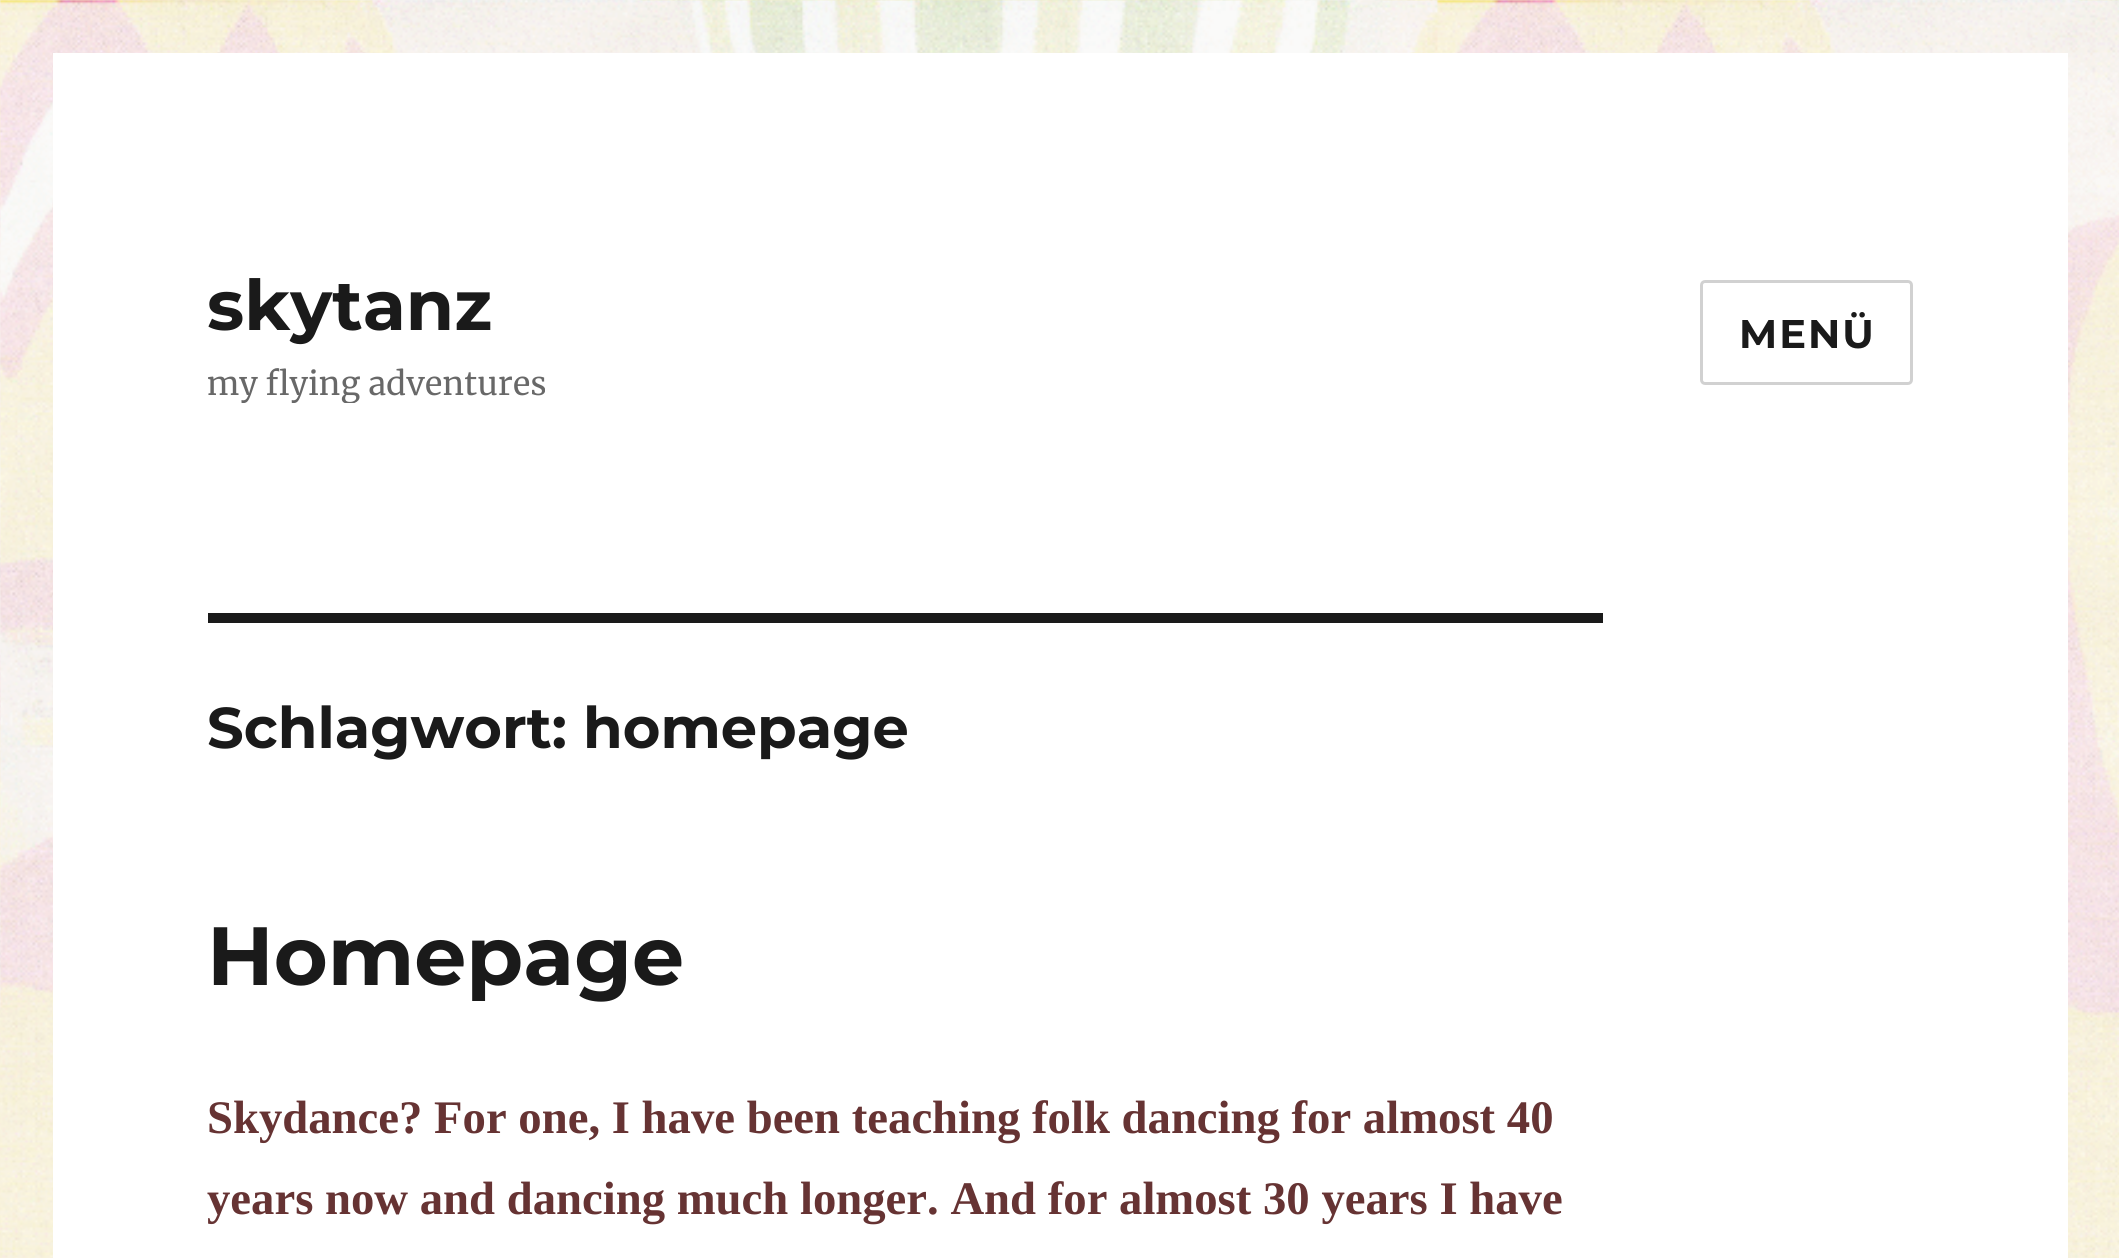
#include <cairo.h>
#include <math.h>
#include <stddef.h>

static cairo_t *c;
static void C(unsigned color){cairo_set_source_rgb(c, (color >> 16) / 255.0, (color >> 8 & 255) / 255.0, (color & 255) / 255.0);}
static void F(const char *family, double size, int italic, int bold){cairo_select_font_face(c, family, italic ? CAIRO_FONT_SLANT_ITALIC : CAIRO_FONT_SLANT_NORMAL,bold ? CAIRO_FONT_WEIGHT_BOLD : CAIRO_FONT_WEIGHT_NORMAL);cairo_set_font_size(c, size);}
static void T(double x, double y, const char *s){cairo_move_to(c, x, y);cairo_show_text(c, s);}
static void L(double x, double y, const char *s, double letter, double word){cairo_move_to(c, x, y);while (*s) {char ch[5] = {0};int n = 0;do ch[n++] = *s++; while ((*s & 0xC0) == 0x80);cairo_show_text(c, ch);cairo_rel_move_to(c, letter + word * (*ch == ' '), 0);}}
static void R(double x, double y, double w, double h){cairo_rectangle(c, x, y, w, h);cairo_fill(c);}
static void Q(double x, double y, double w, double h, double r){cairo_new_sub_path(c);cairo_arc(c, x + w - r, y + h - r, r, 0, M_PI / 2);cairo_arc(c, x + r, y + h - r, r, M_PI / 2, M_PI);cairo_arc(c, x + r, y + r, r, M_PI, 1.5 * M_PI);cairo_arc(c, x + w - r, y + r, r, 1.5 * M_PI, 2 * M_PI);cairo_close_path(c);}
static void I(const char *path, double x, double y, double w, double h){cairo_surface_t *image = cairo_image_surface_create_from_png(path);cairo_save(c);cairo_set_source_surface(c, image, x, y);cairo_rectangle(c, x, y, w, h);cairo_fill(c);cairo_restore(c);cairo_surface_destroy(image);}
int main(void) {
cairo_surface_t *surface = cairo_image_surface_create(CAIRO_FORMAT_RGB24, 2119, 1258);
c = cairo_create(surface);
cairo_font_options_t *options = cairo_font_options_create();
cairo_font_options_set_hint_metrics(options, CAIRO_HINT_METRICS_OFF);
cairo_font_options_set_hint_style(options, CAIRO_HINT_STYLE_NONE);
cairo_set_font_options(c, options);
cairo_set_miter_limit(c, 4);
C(0xffffff);
cairo_paint(c);
I("1.png",0,0,2119,1258);
C(0xffffff);
R(53,53,2015,1205);
F("Montserrat Thin",70,0,0);
C(0x1a1a1a);
T(207,330,"skytanz");
cairo_save(c);
cairo_rectangle(c,208,263,340,140);
cairo_clip(c);
F("Merriweather",32.5,0,0);
C(0x686868);
T(207,395,"my flying adventures");
cairo_restore(c);
Q(1701.5,281.5,210,102,3.5);
C(0xd1d1d1);
cairo_set_line_width(c,3);
cairo_stroke(c);
F("Montserrat Thin",40,0,0);
C(0x1a1a1a);
L(1739,348,"MENÜ",2,0);
R(208,613,1395,10);
F("Montserrat Thin",57.5,0,0);
T(207,748,"Schlagwort: homepage");
F("Montserrat Thin",82.5,0,0);
T(207,985,"Homepage");
F("Liberation Serif",46.7,0,1);
C(0x663333);
T(207,1133,"Skydance? For one, I have been teaching folk dancing for almost 40");
T(207,1214,"years now and dancing much longer. And for almost 30 years I have");
cairo_surface_write_to_png(surface, "o.png");
cairo_font_options_destroy(options);
cairo_destroy(c);
cairo_surface_destroy(surface);
return 0;
}
